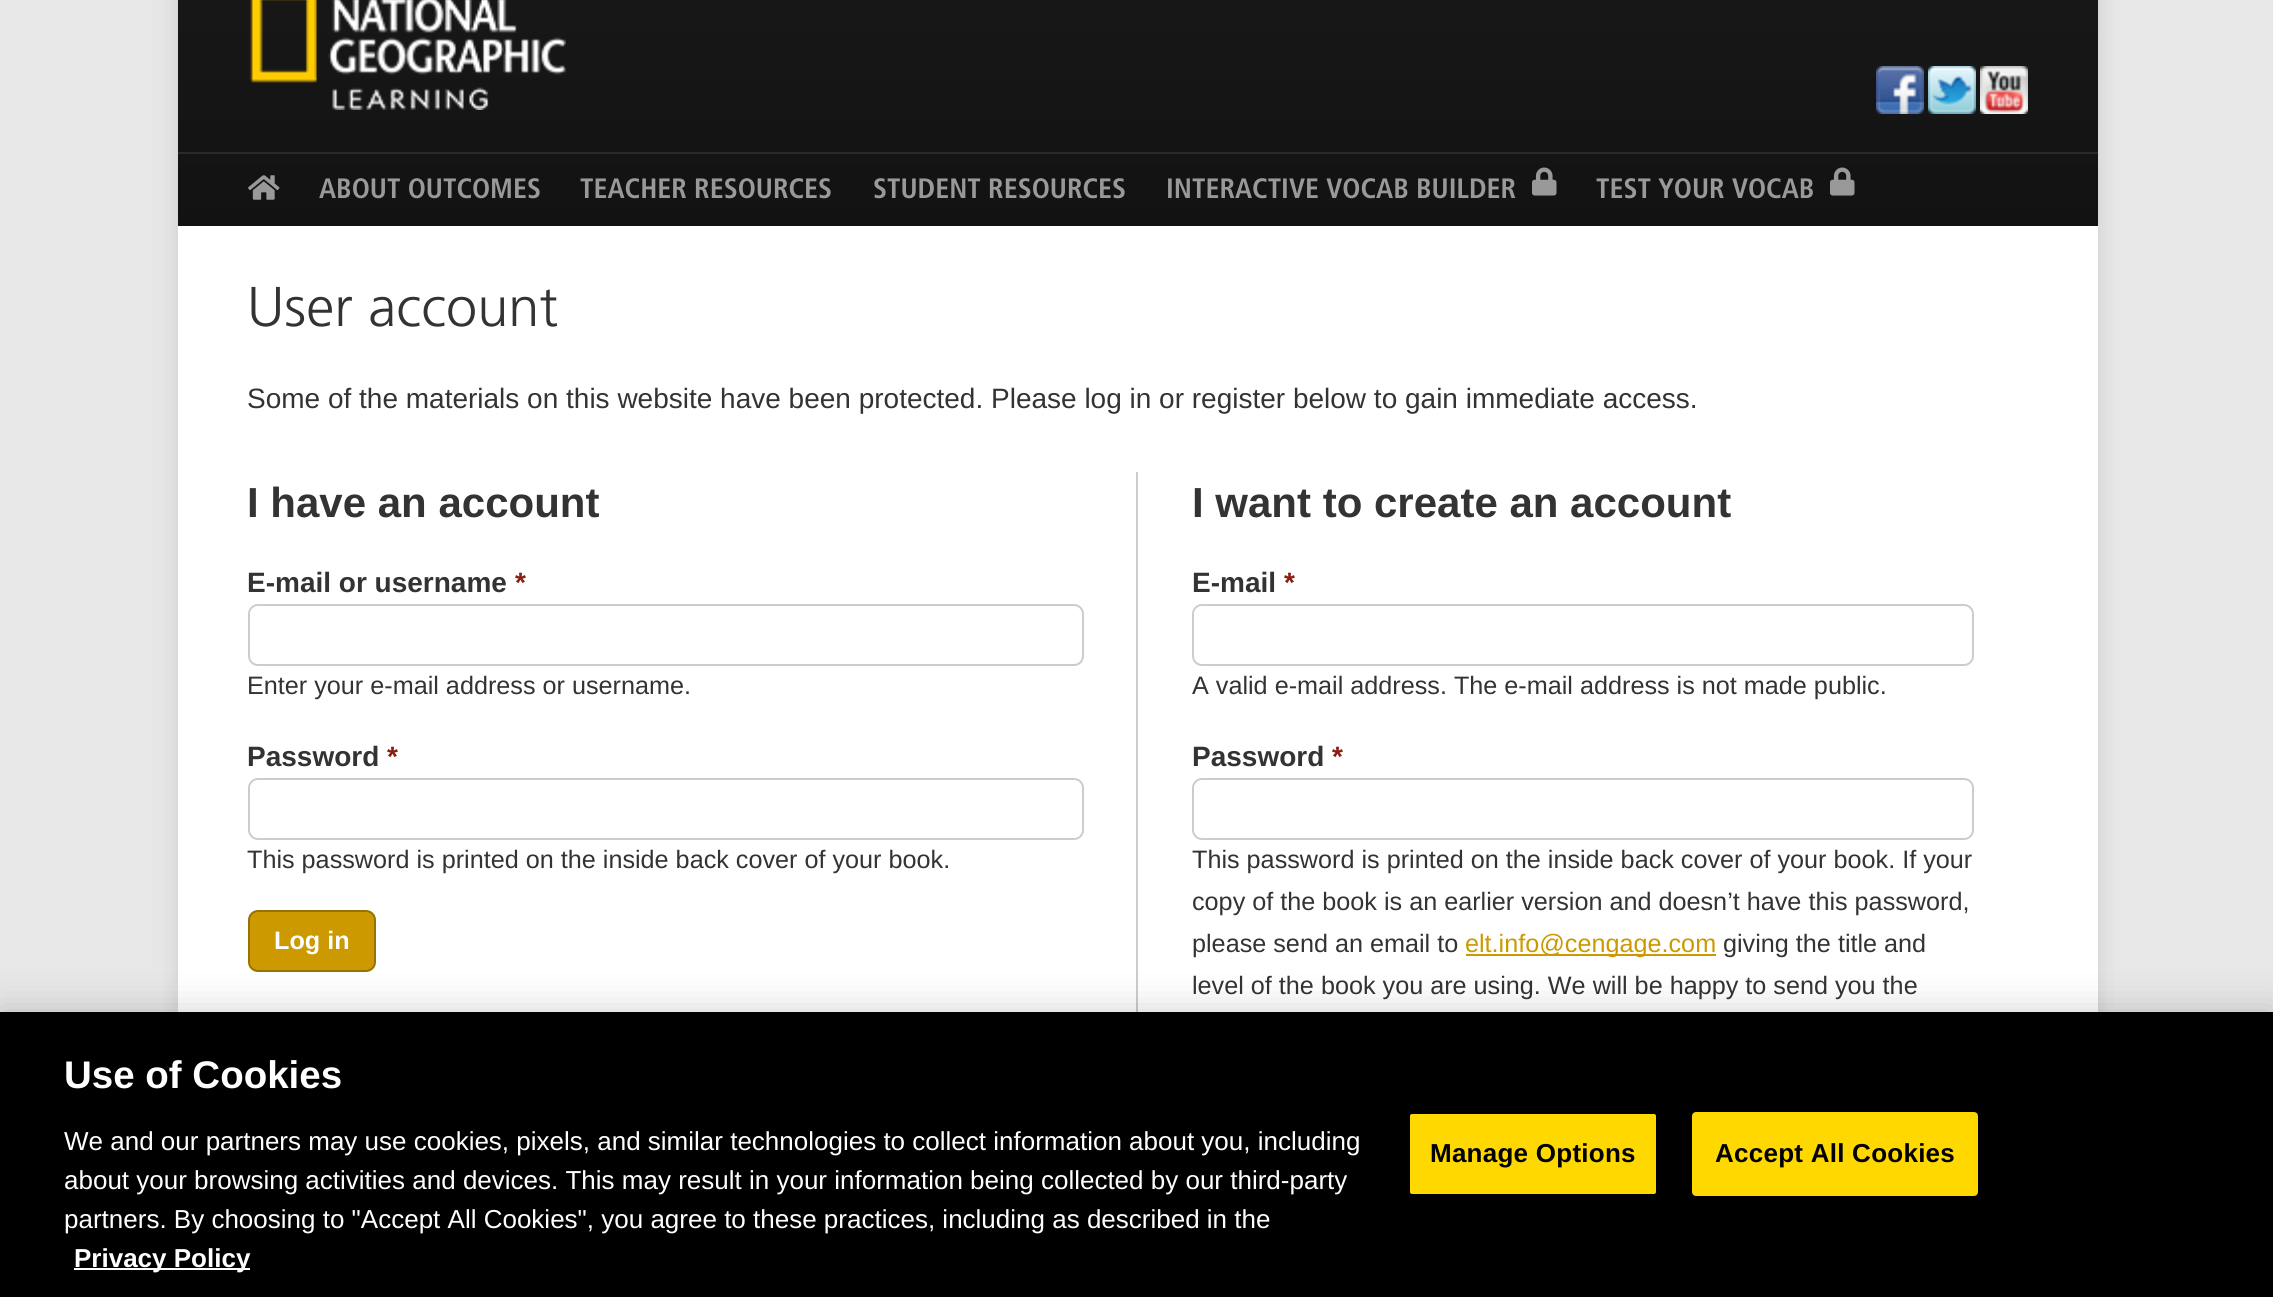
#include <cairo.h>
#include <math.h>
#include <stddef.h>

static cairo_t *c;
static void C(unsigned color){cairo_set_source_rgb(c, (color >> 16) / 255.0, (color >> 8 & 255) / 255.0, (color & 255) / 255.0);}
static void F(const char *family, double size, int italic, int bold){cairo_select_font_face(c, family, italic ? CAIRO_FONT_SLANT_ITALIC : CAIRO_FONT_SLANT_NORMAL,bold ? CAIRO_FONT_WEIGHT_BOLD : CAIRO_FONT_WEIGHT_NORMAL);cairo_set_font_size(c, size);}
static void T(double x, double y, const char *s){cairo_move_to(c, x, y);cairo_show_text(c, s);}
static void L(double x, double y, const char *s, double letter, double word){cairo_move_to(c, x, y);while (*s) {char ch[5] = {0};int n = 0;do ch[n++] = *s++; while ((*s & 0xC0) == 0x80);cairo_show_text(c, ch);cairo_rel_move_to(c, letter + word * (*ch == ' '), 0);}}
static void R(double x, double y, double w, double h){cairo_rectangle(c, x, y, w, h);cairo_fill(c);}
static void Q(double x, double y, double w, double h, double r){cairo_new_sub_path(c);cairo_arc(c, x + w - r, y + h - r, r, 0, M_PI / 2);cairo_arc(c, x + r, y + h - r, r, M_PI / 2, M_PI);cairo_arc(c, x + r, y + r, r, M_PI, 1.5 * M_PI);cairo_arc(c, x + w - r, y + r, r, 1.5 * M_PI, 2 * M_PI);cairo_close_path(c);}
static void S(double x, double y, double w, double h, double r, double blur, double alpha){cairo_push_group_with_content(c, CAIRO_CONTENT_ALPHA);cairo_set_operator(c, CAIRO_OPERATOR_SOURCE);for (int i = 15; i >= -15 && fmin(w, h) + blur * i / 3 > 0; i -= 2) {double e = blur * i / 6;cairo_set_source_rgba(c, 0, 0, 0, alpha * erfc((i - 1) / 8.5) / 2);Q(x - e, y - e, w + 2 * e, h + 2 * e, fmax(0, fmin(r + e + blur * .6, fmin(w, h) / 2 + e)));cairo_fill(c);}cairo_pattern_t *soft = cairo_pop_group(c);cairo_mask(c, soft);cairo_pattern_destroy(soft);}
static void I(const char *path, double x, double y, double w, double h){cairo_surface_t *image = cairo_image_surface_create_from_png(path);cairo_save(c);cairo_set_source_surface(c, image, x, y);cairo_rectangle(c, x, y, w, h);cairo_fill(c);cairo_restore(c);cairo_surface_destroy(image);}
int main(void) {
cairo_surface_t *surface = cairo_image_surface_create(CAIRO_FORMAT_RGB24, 2273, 1297);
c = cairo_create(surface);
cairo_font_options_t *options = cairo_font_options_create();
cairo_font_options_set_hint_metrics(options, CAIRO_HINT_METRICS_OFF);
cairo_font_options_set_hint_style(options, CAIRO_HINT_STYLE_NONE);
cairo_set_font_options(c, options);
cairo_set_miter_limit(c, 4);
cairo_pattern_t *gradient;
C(0xe7e7e7);
cairo_paint(c);
C(0xcccccc);
S(178,-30,1920,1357,0,10,1);
C(0xffffff);
R(178,226,1920,786);
gradient = cairo_pattern_create_linear(178,-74,178,226);
cairo_pattern_add_color_stop_rgba(gradient,0,0.098,0.098,0.098,1);
cairo_pattern_add_color_stop_rgba(gradient,1,0.071,0.071,0.071,1);
cairo_set_source(c,gradient);
cairo_pattern_destroy(gradient);
R(178,0,1920,226);
I("1.png",249,0,317,110);
I("2.png",1876,66,48,48);
I("3.png",1928,66,48,48);
I("4.png",1980,66,48,48);
C(0x2a2a2a);
R(178,152,1920,2);
I("5.png",248,175,32,25);
F("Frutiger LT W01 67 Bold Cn",28,0,1);
C(0x999999);
T(319,198,"ABOUT OUTCOMES");
T(580,198,"TEACHER RESOURCES");
T(873,198,"STUDENT RESOURCES");
T(1166,198,"INTERACTIVE VOCAB BUILDER");
I("6.png",1532,167,25,29);
T(1596,198,"TEST YOUR VOCAB");
I("6.png",1830,167,25,29);
F("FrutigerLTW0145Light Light",56,0,0);
C(0x333333);
T(247,326,"User account");
F("Liberation Sans",28,0,0);
T(247,408,"Some of the materials on this website have been protected. Please log in or register below to gain immediate access.");
F("Liberation Sans",42,0,1);
T(247,517,"I have an account");
F("Liberation Sans",28,0,1);
T(247,592,"E-mail or username");
C(0x8a1f11);
T(515,592,"*");
Q(249,605,834,60,9);
C(0xcccccc);
cairo_stroke(c);
F("Liberation Sans",25.2,0,0);
C(0x333333);
T(247,694,"Enter your e-mail address or username.");
F("Liberation Sans",28,0,1);
T(247,766,"Password");
C(0x8a1f11);
T(387,766,"*");
Q(249,779,834,60,9);
C(0xcccccc);
cairo_stroke(c);
F("Liberation Sans",25.2,0,0);
C(0x333333);
T(247,868,"This password is printed on the inside back cover of your book.");
C(0xcc9900);
Q(249,911,126,60,9);
cairo_fill_preserve(c);
C(0x987200);
cairo_stroke(c);
F("Liberation Sans",25.2,0,1);
C(0xffffff);
T(274,949,"Log in");
C(0xcccccc);
R(1136,472,2,540);
F("Liberation Sans",42,0,1);
C(0x333333);
T(1192,517,"I want to create an account");
F("Liberation Sans",28,0,1);
T(1192,592,"E-mail");
C(0x8a1f11);
T(1284,592,"*");
Q(1193,605,780,60,9);
C(0xcccccc);
cairo_stroke(c);
F("Liberation Sans",25.2,0,0);
C(0x333333);
T(1192,694,"A valid e-mail address. The e-mail address is not made public.");
F("Liberation Sans",28,0,1);
T(1192,766,"Password");
C(0x8a1f11);
T(1332,766,"*");
Q(1193,779,780,60,9);
C(0xcccccc);
cairo_stroke(c);
F("Liberation Sans",25.2,0,0);
C(0x333333);
T(1192,868,"This password is printed on the inside back cover of your book. If your");
T(1192,910,"copy of the book is an earlier version and doesn’t have this password,");
T(1192,952,"please send an email to");
C(0xcc9900);
R(1466,954,250,2);
T(1465,952,"elt.info@cengage.com");
C(0x333333);
T(1723,952,"giving the title and");
T(1192,994,"level of the book you are using. We will be happy to send you the");
C(0x000000);
S(0,1012,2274,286,0,18,.2);
C(0x000000);
R(0,1012,2273,285);
F("Liberation Sans",38.5,0,1);
C(0xffffff);
T(64,1088,"Use of Cookies");
F("Liberation Sans",26,0,0);
T(64,1150,"We and our partners may use cookies, pixels, and similar technologies to collect information about you, including");
T(64,1189,"about your browsing activities and devices. This may result in your information being collected by our third-party");
T(64,1228,"partners. By choosing to \"Accept All Cookies\", you agree to these practices, including as described in the");
R(74,1268,176,2);
F("Liberation Sans",26,0,1);
T(74,1267,"Privacy Policy");
C(0xffd800);
Q(1409,1113,248,82,3);
cairo_fill_preserve(c);
C(0x000000);
cairo_stroke(c);
L(1430,1162,"Manage Options",.25,0);
C(0xffd800);
Q(1693,1113,284,82,3);
cairo_fill_preserve(c);
cairo_stroke(c);
C(0x000000);
L(1715,1162,"Accept All Cookies",.25,0);
cairo_surface_write_to_png(surface, "o.png");
cairo_font_options_destroy(options);
cairo_destroy(c);
cairo_surface_destroy(surface);
return 0;
}
